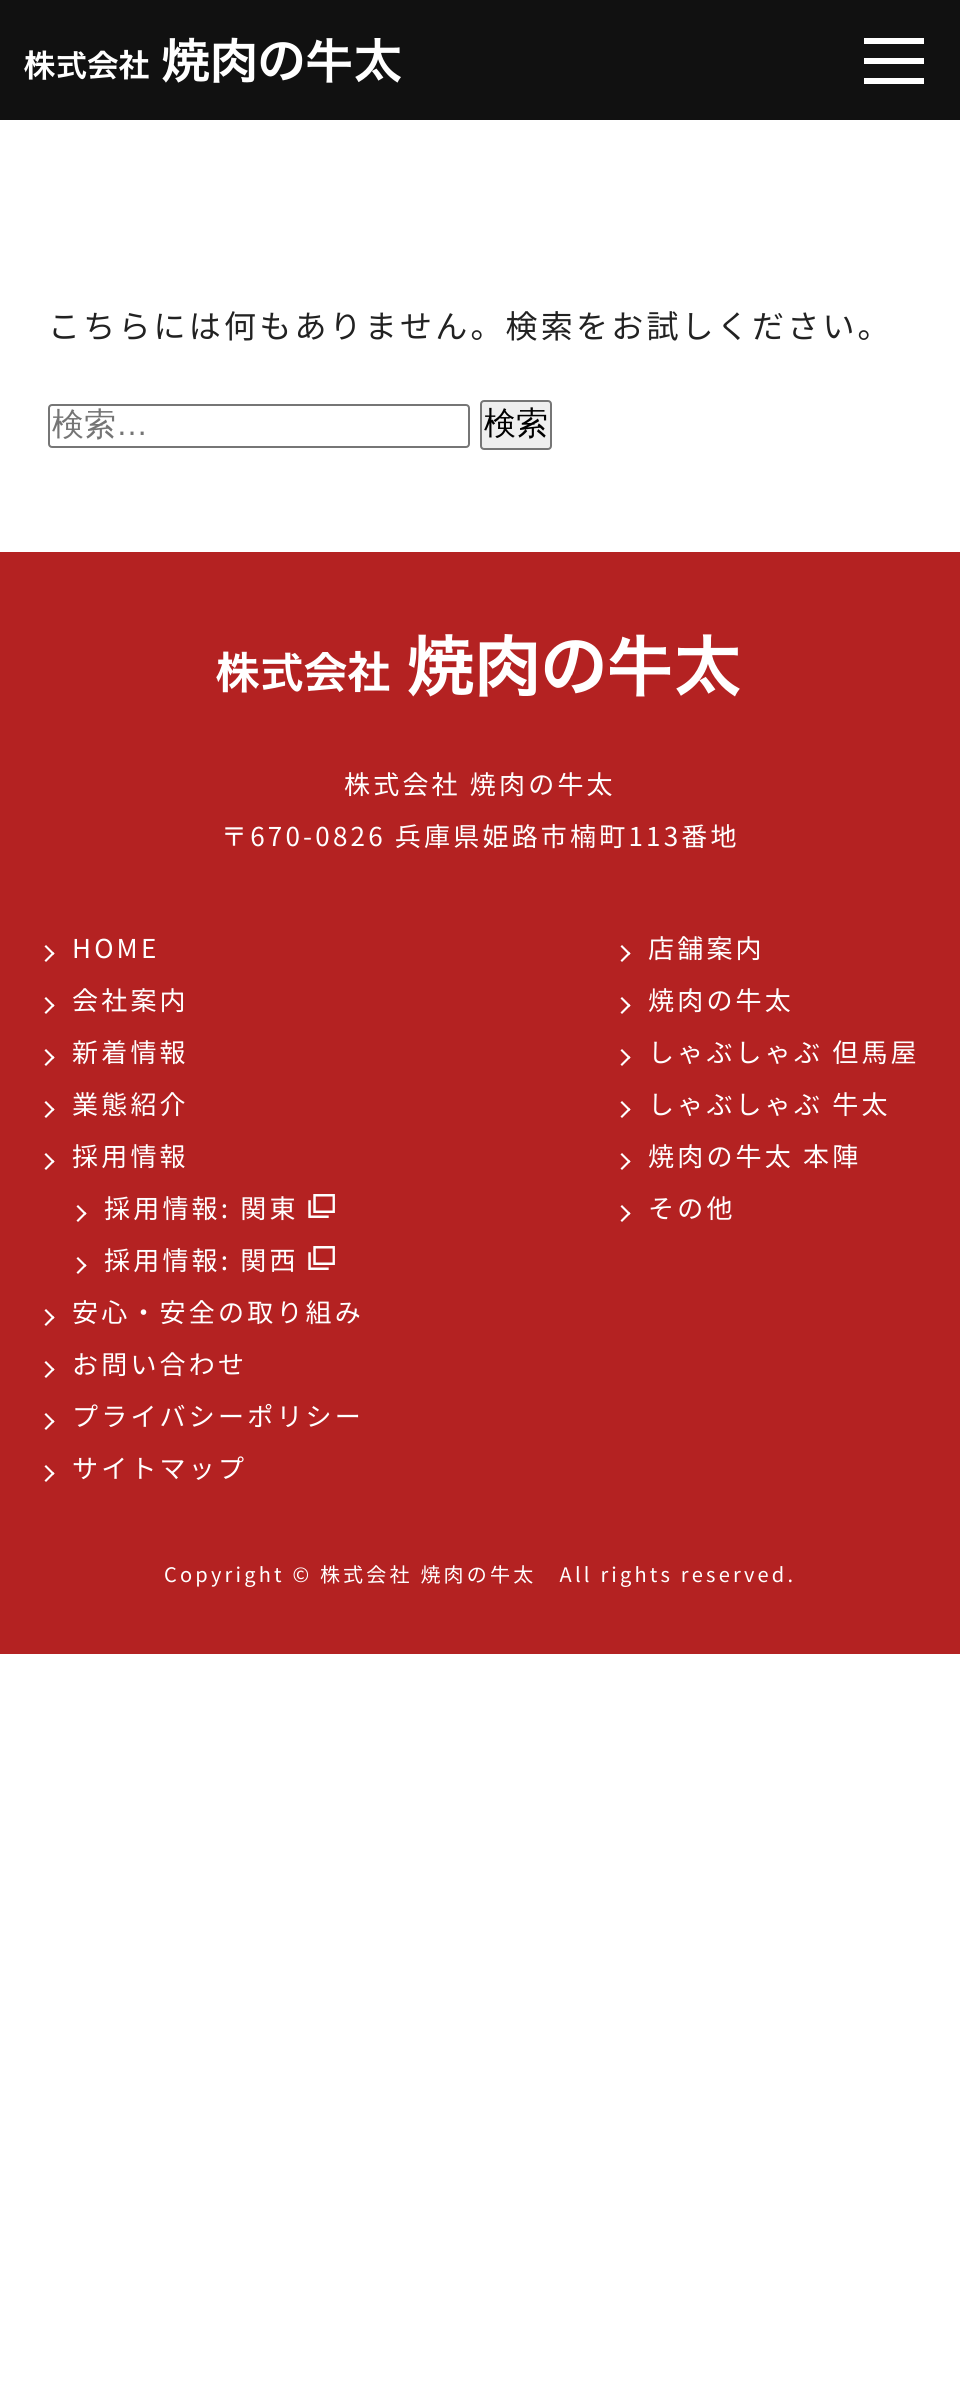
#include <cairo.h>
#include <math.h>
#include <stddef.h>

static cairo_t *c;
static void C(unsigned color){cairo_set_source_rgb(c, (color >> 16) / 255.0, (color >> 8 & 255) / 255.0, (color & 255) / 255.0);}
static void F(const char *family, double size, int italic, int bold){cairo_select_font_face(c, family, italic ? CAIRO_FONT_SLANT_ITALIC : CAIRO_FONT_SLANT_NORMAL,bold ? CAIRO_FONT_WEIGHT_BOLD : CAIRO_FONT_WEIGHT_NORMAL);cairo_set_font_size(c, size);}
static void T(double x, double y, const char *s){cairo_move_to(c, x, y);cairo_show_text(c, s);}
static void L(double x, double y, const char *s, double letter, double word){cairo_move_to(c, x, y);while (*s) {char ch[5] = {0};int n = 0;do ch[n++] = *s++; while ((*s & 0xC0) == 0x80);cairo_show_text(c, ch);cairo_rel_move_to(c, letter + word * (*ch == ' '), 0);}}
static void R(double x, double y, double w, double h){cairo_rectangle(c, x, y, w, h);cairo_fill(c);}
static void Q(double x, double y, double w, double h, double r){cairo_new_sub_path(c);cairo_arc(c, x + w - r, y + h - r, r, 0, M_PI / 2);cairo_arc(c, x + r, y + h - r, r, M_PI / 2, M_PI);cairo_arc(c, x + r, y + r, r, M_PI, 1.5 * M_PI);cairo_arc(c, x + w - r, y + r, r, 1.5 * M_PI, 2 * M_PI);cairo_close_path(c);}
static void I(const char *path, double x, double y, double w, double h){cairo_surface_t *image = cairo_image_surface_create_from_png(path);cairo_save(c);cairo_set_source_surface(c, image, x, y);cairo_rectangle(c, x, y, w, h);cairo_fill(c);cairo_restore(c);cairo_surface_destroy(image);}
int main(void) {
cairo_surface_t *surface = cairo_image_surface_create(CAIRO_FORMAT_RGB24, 960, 2395);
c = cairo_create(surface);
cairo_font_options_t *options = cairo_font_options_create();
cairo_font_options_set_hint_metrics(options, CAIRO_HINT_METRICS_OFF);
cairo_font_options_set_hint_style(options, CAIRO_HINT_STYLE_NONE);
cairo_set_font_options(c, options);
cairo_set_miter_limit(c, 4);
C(0xffffff);
cairo_paint(c);
C(0x111111);
R(0,0,960,120);
I("1.png",24,37,377,46);
C(0xffffff);
R(864,38,60,6);
R(864,58,60,6);
R(864,78,60,6);
F("Noto Sans JP",32,0,0);
C(0x222222);
L(48,338,"こちらには何もありません。検索をお試しください。",3.2,0);
Q(49,405,420,42,3);
C(0x767676);
cairo_stroke(c);
F("WenQuanYi Zen Hei Medium",32,0,0);
C(0x757575);
T(52,435,"検索");
F("Liberation Sans",32,0,0);
T(116,435,"…");
C(0xefefef);
Q(481,401,70,48,3);
cairo_fill_preserve(c);
C(0x767676);
cairo_stroke(c);
F("WenQuanYi Zen Hei Medium",32,0,0);
C(0x000000);
T(484,434,"検索");
C(0xb42222);
R(0,552,960,1102);
I("2.png",216,634,524,63);
F("Noto Sans JP",26,0,0);
C(0xffffff);
L(344,794,"株式会社 焼肉の牛太",3.2,0);
L(221,846,"〒670-0826 兵庫県姫路市楠町113番地",3.2,0);
cairo_new_path(c);
cairo_move_to(c,46,945);
cairo_line_to(c,54.5,953.5);
cairo_line_to(c,53,955);
cairo_line_to(c,44.5,946.5);
cairo_close_path(c);
cairo_fill(c);
cairo_new_path(c);
cairo_move_to(c,53,952);
cairo_line_to(c,54.5,953.5);
cairo_line_to(c,46,962);
cairo_line_to(c,44.5,960.5);
cairo_close_path(c);
cairo_fill(c);
L(72,958,"HOME",3.2,0);
cairo_new_path(c);
cairo_move_to(c,46,997);
cairo_line_to(c,54.5,1005.5);
cairo_line_to(c,53,1007);
cairo_line_to(c,44.5,998.5);
cairo_close_path(c);
cairo_fill(c);
cairo_new_path(c);
cairo_move_to(c,53,1004);
cairo_line_to(c,54.5,1005.5);
cairo_line_to(c,46,1014);
cairo_line_to(c,44.5,1012.5);
cairo_close_path(c);
cairo_fill(c);
L(72,1010,"会社案内",3.2,0);
cairo_new_path(c);
cairo_move_to(c,46,1049);
cairo_line_to(c,54.5,1057.5);
cairo_line_to(c,53,1059);
cairo_line_to(c,44.5,1050.5);
cairo_close_path(c);
cairo_fill(c);
cairo_new_path(c);
cairo_move_to(c,53,1056);
cairo_line_to(c,54.5,1057.5);
cairo_line_to(c,46,1066);
cairo_line_to(c,44.5,1064.5);
cairo_close_path(c);
cairo_fill(c);
L(72,1062,"新着情報",3.2,0);
cairo_new_path(c);
cairo_move_to(c,46,1101);
cairo_line_to(c,54.5,1109.5);
cairo_line_to(c,53,1111);
cairo_line_to(c,44.5,1102.5);
cairo_close_path(c);
cairo_fill(c);
cairo_new_path(c);
cairo_move_to(c,53,1108);
cairo_line_to(c,54.5,1109.5);
cairo_line_to(c,46,1118);
cairo_line_to(c,44.5,1116.5);
cairo_close_path(c);
cairo_fill(c);
L(72,1114,"業態紹介",3.2,0);
cairo_new_path(c);
cairo_move_to(c,46,1153);
cairo_line_to(c,54.5,1161.5);
cairo_line_to(c,53,1163);
cairo_line_to(c,44.5,1154.5);
cairo_close_path(c);
cairo_fill(c);
cairo_new_path(c);
cairo_move_to(c,53,1160);
cairo_line_to(c,54.5,1161.5);
cairo_line_to(c,46,1170);
cairo_line_to(c,44.5,1168.5);
cairo_close_path(c);
cairo_fill(c);
L(72,1166,"採用情報",3.2,0);
cairo_new_path(c);
cairo_move_to(c,78,1205);
cairo_line_to(c,86.5,1213.5);
cairo_line_to(c,85,1215);
cairo_line_to(c,76.5,1206.5);
cairo_close_path(c);
cairo_fill(c);
cairo_new_path(c);
cairo_move_to(c,85,1212);
cairo_line_to(c,86.5,1213.5);
cairo_line_to(c,78,1222);
cairo_line_to(c,76.5,1220.5);
cairo_close_path(c);
cairo_fill(c);
L(104,1218,"採用情報: 関東",3.2,0);
I("3.png",308,1194,27,24);
cairo_new_path(c);
cairo_move_to(c,78,1257);
cairo_line_to(c,86.5,1265.5);
cairo_line_to(c,85,1267);
cairo_line_to(c,76.5,1258.5);
cairo_close_path(c);
cairo_fill(c);
cairo_new_path(c);
cairo_move_to(c,85,1264);
cairo_line_to(c,86.5,1265.5);
cairo_line_to(c,78,1274);
cairo_line_to(c,76.5,1272.5);
cairo_close_path(c);
cairo_fill(c);
L(104,1270,"採用情報: 関西",3.2,0);
I("3.png",308,1246,27,24);
cairo_new_path(c);
cairo_move_to(c,46,1309);
cairo_line_to(c,54.5,1317.5);
cairo_line_to(c,53,1319);
cairo_line_to(c,44.5,1310.5);
cairo_close_path(c);
cairo_fill(c);
cairo_new_path(c);
cairo_move_to(c,53,1316);
cairo_line_to(c,54.5,1317.5);
cairo_line_to(c,46,1326);
cairo_line_to(c,44.5,1324.5);
cairo_close_path(c);
cairo_fill(c);
L(72,1322,"安心・安全の取り組み",3.2,0);
cairo_new_path(c);
cairo_move_to(c,46,1361);
cairo_line_to(c,54.5,1369.5);
cairo_line_to(c,53,1371);
cairo_line_to(c,44.5,1362.5);
cairo_close_path(c);
cairo_fill(c);
cairo_new_path(c);
cairo_move_to(c,53,1368);
cairo_line_to(c,54.5,1369.5);
cairo_line_to(c,46,1378);
cairo_line_to(c,44.5,1376.5);
cairo_close_path(c);
cairo_fill(c);
L(72,1374,"お問い合わせ",3.2,0);
cairo_new_path(c);
cairo_move_to(c,46,1413);
cairo_line_to(c,54.5,1421.5);
cairo_line_to(c,53,1423);
cairo_line_to(c,44.5,1414.5);
cairo_close_path(c);
cairo_fill(c);
cairo_new_path(c);
cairo_move_to(c,53,1420);
cairo_line_to(c,54.5,1421.5);
cairo_line_to(c,46,1430);
cairo_line_to(c,44.5,1428.5);
cairo_close_path(c);
cairo_fill(c);
L(72,1426,"プライバシーポリシー",3.2,0);
cairo_new_path(c);
cairo_move_to(c,46,1465);
cairo_line_to(c,54.5,1473.5);
cairo_line_to(c,53,1475);
cairo_line_to(c,44.5,1466.5);
cairo_close_path(c);
cairo_fill(c);
cairo_new_path(c);
cairo_move_to(c,53,1472);
cairo_line_to(c,54.5,1473.5);
cairo_line_to(c,46,1482);
cairo_line_to(c,44.5,1480.5);
cairo_close_path(c);
cairo_fill(c);
L(72,1478,"サイトマップ",3.2,0);
cairo_new_path(c);
cairo_move_to(c,622,945);
cairo_line_to(c,630.5,953.5);
cairo_line_to(c,629,955);
cairo_line_to(c,620.5,946.5);
cairo_close_path(c);
cairo_fill(c);
cairo_new_path(c);
cairo_move_to(c,629,952);
cairo_line_to(c,630.5,953.5);
cairo_line_to(c,622,962);
cairo_line_to(c,620.5,960.5);
cairo_close_path(c);
cairo_fill(c);
L(648,958,"店舗案内",3.2,0);
cairo_new_path(c);
cairo_move_to(c,622,997);
cairo_line_to(c,630.5,1005.5);
cairo_line_to(c,629,1007);
cairo_line_to(c,620.5,998.5);
cairo_close_path(c);
cairo_fill(c);
cairo_new_path(c);
cairo_move_to(c,629,1004);
cairo_line_to(c,630.5,1005.5);
cairo_line_to(c,622,1014);
cairo_line_to(c,620.5,1012.5);
cairo_close_path(c);
cairo_fill(c);
L(648,1010,"焼肉の牛太",3.2,0);
cairo_new_path(c);
cairo_move_to(c,622,1049);
cairo_line_to(c,630.5,1057.5);
cairo_line_to(c,629,1059);
cairo_line_to(c,620.5,1050.5);
cairo_close_path(c);
cairo_fill(c);
cairo_new_path(c);
cairo_move_to(c,629,1056);
cairo_line_to(c,630.5,1057.5);
cairo_line_to(c,622,1066);
cairo_line_to(c,620.5,1064.5);
cairo_close_path(c);
cairo_fill(c);
L(648,1062,"しゃぶしゃぶ 但馬屋",3.2,0);
cairo_new_path(c);
cairo_move_to(c,622,1101);
cairo_line_to(c,630.5,1109.5);
cairo_line_to(c,629,1111);
cairo_line_to(c,620.5,1102.5);
cairo_close_path(c);
cairo_fill(c);
cairo_new_path(c);
cairo_move_to(c,629,1108);
cairo_line_to(c,630.5,1109.5);
cairo_line_to(c,622,1118);
cairo_line_to(c,620.5,1116.5);
cairo_close_path(c);
cairo_fill(c);
L(648,1114,"しゃぶしゃぶ 牛太",3.2,0);
cairo_new_path(c);
cairo_move_to(c,622,1153);
cairo_line_to(c,630.5,1161.5);
cairo_line_to(c,629,1163);
cairo_line_to(c,620.5,1154.5);
cairo_close_path(c);
cairo_fill(c);
cairo_new_path(c);
cairo_move_to(c,629,1160);
cairo_line_to(c,630.5,1161.5);
cairo_line_to(c,622,1170);
cairo_line_to(c,620.5,1168.5);
cairo_close_path(c);
cairo_fill(c);
L(648,1166,"焼肉の牛太 本陣",3.2,0);
cairo_new_path(c);
cairo_move_to(c,622,1205);
cairo_line_to(c,630.5,1213.5);
cairo_line_to(c,629,1215);
cairo_line_to(c,620.5,1206.5);
cairo_close_path(c);
cairo_fill(c);
cairo_new_path(c);
cairo_move_to(c,629,1212);
cairo_line_to(c,630.5,1213.5);
cairo_line_to(c,622,1222);
cairo_line_to(c,620.5,1220.5);
cairo_close_path(c);
cairo_fill(c);
L(648,1218,"その他",3.2,0);
F("Noto Sans JP",20,0,0);
L(164,1582,"Copyright © 株式会社 焼肉の牛太　All rights reserved.",3.2,0);
cairo_surface_write_to_png(surface, "o.png");
cairo_font_options_destroy(options);
cairo_destroy(c);
cairo_surface_destroy(surface);
return 0;
}
